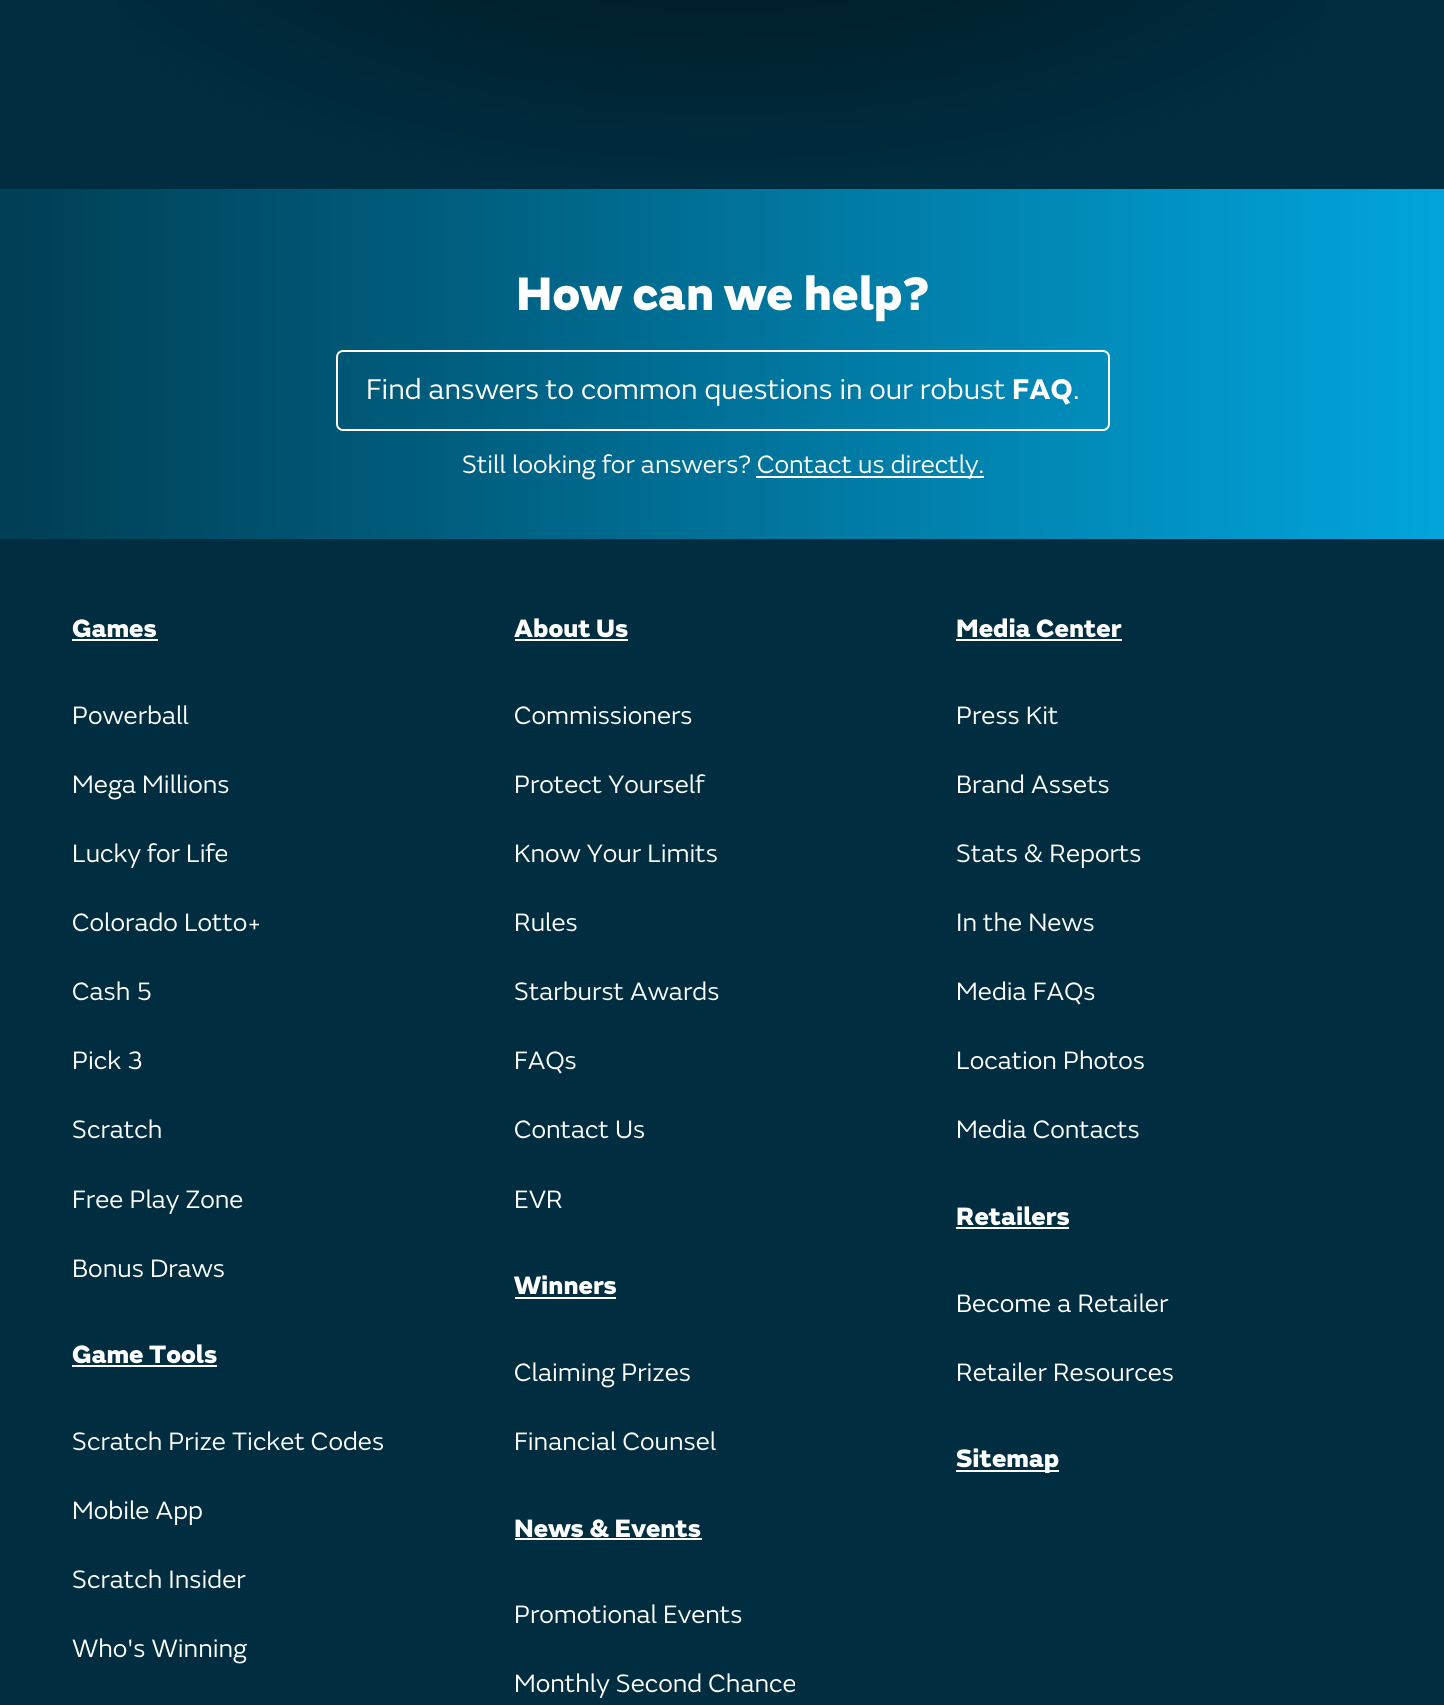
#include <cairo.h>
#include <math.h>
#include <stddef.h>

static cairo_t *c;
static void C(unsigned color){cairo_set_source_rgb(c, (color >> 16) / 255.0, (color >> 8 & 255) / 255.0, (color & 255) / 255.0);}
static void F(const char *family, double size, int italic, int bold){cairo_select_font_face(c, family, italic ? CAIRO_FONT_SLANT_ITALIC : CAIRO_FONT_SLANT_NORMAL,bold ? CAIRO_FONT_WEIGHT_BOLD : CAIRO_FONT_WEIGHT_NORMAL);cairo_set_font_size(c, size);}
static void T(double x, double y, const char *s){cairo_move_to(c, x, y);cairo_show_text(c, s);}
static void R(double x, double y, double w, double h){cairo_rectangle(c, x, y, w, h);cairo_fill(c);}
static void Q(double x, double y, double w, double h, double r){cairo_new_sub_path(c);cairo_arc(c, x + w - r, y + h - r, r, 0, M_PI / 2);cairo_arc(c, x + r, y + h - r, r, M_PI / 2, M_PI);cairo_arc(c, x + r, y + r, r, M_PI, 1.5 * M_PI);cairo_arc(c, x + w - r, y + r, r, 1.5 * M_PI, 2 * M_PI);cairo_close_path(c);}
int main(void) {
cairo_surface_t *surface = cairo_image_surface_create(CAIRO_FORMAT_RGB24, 1444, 1705);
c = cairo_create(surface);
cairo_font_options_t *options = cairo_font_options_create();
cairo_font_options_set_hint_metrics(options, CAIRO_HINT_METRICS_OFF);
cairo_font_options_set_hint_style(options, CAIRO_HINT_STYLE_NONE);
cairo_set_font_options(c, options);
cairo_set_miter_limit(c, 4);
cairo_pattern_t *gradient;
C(0x002d40);
cairo_paint(c);
gradient = cairo_pattern_create_radial(0,0,0,0,0,1);
cairo_pattern_set_matrix(gradient, &(cairo_matrix_t){1.0 / 1022, 0, 0, 1.0 / 476, -1.0 * 723 / 1022, -1.0 * -148 / 476});
cairo_pattern_add_color_stop_rgba(gradient,0,0,0.09,0.125,1);
cairo_pattern_add_color_stop_rgba(gradient,.04,0,0.09,0.125,1);
cairo_pattern_add_color_stop_rgba(gradient,.72,0,0.176,0.251,1);
cairo_set_source(c,gradient);
cairo_pattern_destroy(gradient);
R(119,0,1208,169);
gradient = cairo_pattern_create_linear(0,189,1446,189);
cairo_pattern_add_color_stop_rgba(gradient,.01,0,0.247,0.337,1);
cairo_pattern_add_color_stop_rgba(gradient,1,0.004,0.647,0.863,1);
cairo_set_source(c,gradient);
cairo_pattern_destroy(gradient);
R(0,189,1444,350);
F("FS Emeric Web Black",49,0,0);
C(0xffffff);
T(516,310,"How can we help?");
Q(337,351,772,79,6);
cairo_stroke(c);
F("FS Emeric Web",29.75,0,0);
T(366,399,"Find answers to common questions in our robust");
F("FS Emeric Web",29.75,0,1);
T(1012,399,"FAQ");
F("FS Emeric Web",29.75,0,0);
T(1073,399,".");
F("FS Emeric Web",26.25,0,0);
T(462,473,"Still looking for answers?");
R(756,476,228,2);
T(757,473,"Contact us directly.");
F("FS Emeric Web Black",26.25,0,0);
T(72,637,"Games");
R(72,639,86,2);
F("FS Emeric Web",26.25,0,0);
T(72,724,"Powerball");
T(72,793,"Mega Millions");
T(72,862,"Lucky for Life");
T(72,931,"Colorado Lotto+");
T(72,1000,"Cash 5");
T(72,1069,"Pick 3");
T(72,1138,"Scratch");
T(72,1208,"Free Play Zone");
T(72,1277,"Bonus Draws");
F("FS Emeric Web Black",26.25,0,0);
T(514,637,"About Us");
R(515,639,113,2);
F("FS Emeric Web",26.25,0,0);
T(514,724,"Commissioners");
T(514,793,"Protect Yourself");
T(514,862,"Know Your Limits");
T(514,931,"Rules");
T(514,1000,"Starburst Awards");
T(514,1069,"FAQs");
T(514,1138,"Contact Us");
T(514,1208,"EVR");
F("FS Emeric Web Black",26.25,0,0);
T(956,637,"Media Center");
R(956,639,166,2);
F("FS Emeric Web",26.25,0,0);
T(956,724,"Press Kit");
T(956,793,"Brand Assets");
T(956,862,"Stats & Reports");
T(956,931,"In the News");
T(956,1000,"Media FAQs");
T(956,1069,"Location Photos");
T(956,1138,"Media Contacts");
F("FS Emeric Web Black",26.25,0,0);
T(72,1363,"Game Tools");
R(72,1365,145,2);
F("FS Emeric Web",26.25,0,0);
T(72,1450,"Scratch Prize Ticket Codes");
T(72,1519,"Mobile App");
T(72,1588,"Scratch Insider");
T(72,1657,"Who's Winning");
F("FS Emeric Web Black",26.25,0,0);
T(514,1294,"Winners");
R(515,1297,101,2);
F("FS Emeric Web",26.25,0,0);
T(514,1381,"Claiming Prizes");
T(514,1450,"Financial Counsel");
F("FS Emeric Web Black",26.25,0,0);
T(956,1225,"Retailers");
R(956,1227,113,2);
F("FS Emeric Web",26.25,0,0);
T(956,1312,"Become a Retailer");
T(956,1381,"Retailer Resources");
R(956,1470,103,2);
F("FS Emeric Web Black",26.25,0,0);
T(956,1467,"Sitemap");
T(514,1537,"News & Events");
R(515,1538,187,2);
F("FS Emeric Web",26.25,0,0);
T(514,1623,"Promotional Events");
T(514,1692,"Monthly Second Chance");
cairo_surface_write_to_png(surface, "o.png");
cairo_font_options_destroy(options);
cairo_destroy(c);
cairo_surface_destroy(surface);
return 0;
}
